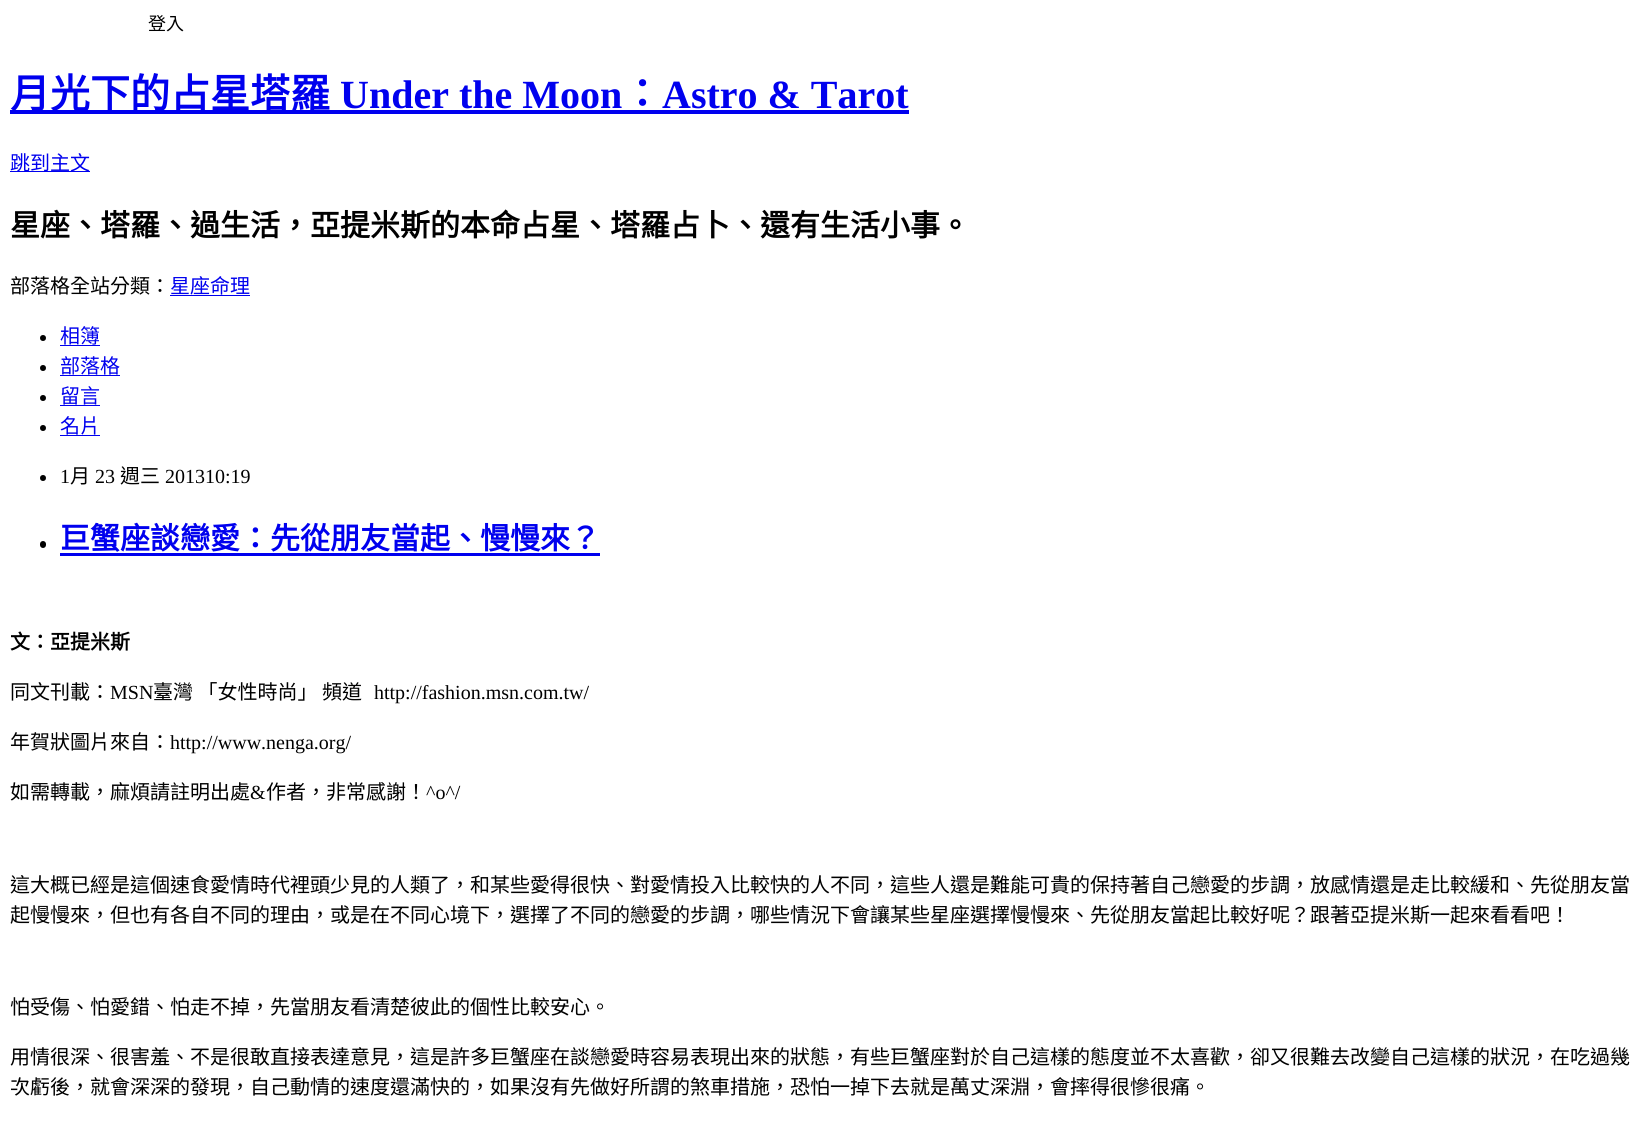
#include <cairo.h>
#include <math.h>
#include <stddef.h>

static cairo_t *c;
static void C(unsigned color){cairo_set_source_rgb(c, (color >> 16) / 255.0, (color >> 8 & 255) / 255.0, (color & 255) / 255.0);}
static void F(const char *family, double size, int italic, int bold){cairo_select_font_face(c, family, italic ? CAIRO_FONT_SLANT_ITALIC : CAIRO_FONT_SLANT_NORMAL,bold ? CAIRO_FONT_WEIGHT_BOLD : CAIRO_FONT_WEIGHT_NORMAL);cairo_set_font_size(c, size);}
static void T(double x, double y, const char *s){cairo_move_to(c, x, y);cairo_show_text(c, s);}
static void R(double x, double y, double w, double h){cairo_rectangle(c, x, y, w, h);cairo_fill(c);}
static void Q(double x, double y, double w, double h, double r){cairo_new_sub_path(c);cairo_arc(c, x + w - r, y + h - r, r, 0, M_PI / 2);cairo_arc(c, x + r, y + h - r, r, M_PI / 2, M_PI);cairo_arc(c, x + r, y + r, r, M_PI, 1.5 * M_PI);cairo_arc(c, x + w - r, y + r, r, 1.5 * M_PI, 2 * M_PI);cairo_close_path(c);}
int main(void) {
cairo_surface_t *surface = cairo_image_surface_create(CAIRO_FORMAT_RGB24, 1647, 1133);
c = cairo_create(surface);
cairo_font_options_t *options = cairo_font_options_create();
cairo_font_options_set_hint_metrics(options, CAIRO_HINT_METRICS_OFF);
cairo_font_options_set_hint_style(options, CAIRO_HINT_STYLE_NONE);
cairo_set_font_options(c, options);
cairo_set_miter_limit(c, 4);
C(0xffffff);
cairo_paint(c);
F("Noto Sans CJK TC",18,0,0);
C(0x000000);
T(148,30,"登入");
C(0x0000ee);
R(10,110,899,4);
F("Noto Sans CJK TC",40,0,1);
T(10,108,"月光下的占星塔羅");
F("Liberation Serif",40,0,1);
T(340,108,"Under the Moon");
F("Noto Sans CJK TC",40,0,1);
T(622,108,"：");
F("Liberation Serif",40,0,1);
T(662,108,"Astro & Tarot");
R(10,171,80,1);
F("Noto Sans CJK TC",20,0,0);
T(10,170,"跳到主文");
F("Noto Sans CJK TC",30,0,1);
C(0x000000);
T(10,236,"星座、塔羅、過生活，亞提米斯的本命占星、塔羅占卜、還有生活小事。");
F("Noto Sans CJK TC",20,0,0);
T(10,293,"部落格全站分類：");
C(0x0000ee);
T(170,293,"星座命理");
R(170,295,80,1);
C(0x000000);
cairo_new_path(c);
cairo_arc(c,43,338,3,0,2 * M_PI);
cairo_fill(c);
C(0x0000ee);
T(60,343,"相簿");
R(60,345,40,1);
C(0x000000);
cairo_new_path(c);
cairo_arc(c,43,368,3,0,2 * M_PI);
cairo_fill(c);
C(0x0000ee);
T(60,373,"部落格");
R(60,375,60,1);
C(0x000000);
cairo_new_path(c);
cairo_arc(c,43,398,3,0,2 * M_PI);
cairo_fill(c);
C(0x0000ee);
T(60,403,"留言");
R(60,405,40,1);
C(0x000000);
cairo_new_path(c);
cairo_arc(c,43,428,3,0,2 * M_PI);
cairo_fill(c);
C(0x0000ee);
T(60,433,"名片");
R(60,435,40,1);
C(0x000000);
cairo_new_path(c);
cairo_arc(c,43,478,3,0,2 * M_PI);
cairo_fill(c);
F("Liberation Serif",20,0,0);
T(60,483,"1");
F("Noto Sans CJK TC",20,0,0);
T(70,483,"月");
F("Liberation Serif",20,0,0);
T(95,483,"23");
F("Noto Sans CJK TC",20,0,0);
T(120,483,"週三");
F("Liberation Serif",20,0,0);
T(165,483,"201310:19");
Q(40,541,6,7,3);
cairo_fill(c);
F("Noto Sans CJK TC",30,0,1);
C(0x0000ee);
T(60,549,"巨蟹座談戀愛：先從朋友當起、慢慢來？");
R(60,553,540,3);
F("Noto Sans CJK TC",20,0,1);
C(0x000000);
T(10,649,"文：亞提米斯");
F("Noto Sans CJK TC",20,0,0);
T(10,699,"同文刊載：");
F("Liberation Serif",20,0,0);
T(110,699,"MSN");
F("Noto Sans CJK TC",20,0,0);
T(153,699,"臺灣 「女性時尚」 頻道");
F("Liberation Serif",20,0,0);
T(374,699,"http://fashion.msn.com.tw/");
F("Noto Sans CJK TC",20,0,0);
T(10,749,"年賀狀圖片來自：");
F("Liberation Serif",20,0,0);
T(170,749,"http://www.nenga.org/");
F("Noto Sans CJK TC",20,0,0);
T(10,799,"如需轉載，麻煩請註明出處");
F("Liberation Serif",20,0,0);
T(250,799,"&");
F("Noto Sans CJK TC",20,0,0);
T(266,799,"作者，非常感謝！");
F("Liberation Serif",20,0,0);
T(426,799,"^o^/");
F("Noto Sans CJK TC",20,0,0);
T(10,892,"這大概已經是這個速食愛情時代裡頭少見的人類了，和某些愛得很快、對愛情投入比較快的人不同，這些人還是難能可貴的保持著自己戀愛的步調，放感情還是走比較緩和、先從朋友當");
T(10,922,"起慢慢來，但也有各自不同的理由，或是在不同心境下，選擇了不同的戀愛的步調，哪些情況下會讓某些星座選擇慢慢來、先從朋友當起比較好呢？跟著亞提米斯一起來看看吧！");
T(10,1014,"怕受傷、怕愛錯、怕走不掉，先當朋友看清楚彼此的個性比較安心。");
T(10,1064,"用情很深、很害羞、不是很敢直接表達意見，這是許多巨蟹座在談戀愛時容易表現出來的狀態，有些巨蟹座對於自己這樣的態度並不太喜歡，卻又很難去改變自己這樣的狀況，在吃過幾");
T(10,1094,"次虧後，就會深深的發現，自己動情的速度還滿快的，如果沒有先做好所謂的煞車措施，恐怕一掉下去就是萬丈深淵，會摔得很慘很痛。");
cairo_surface_write_to_png(surface, "o.png");
cairo_font_options_destroy(options);
cairo_destroy(c);
cairo_surface_destroy(surface);
return 0;
}
